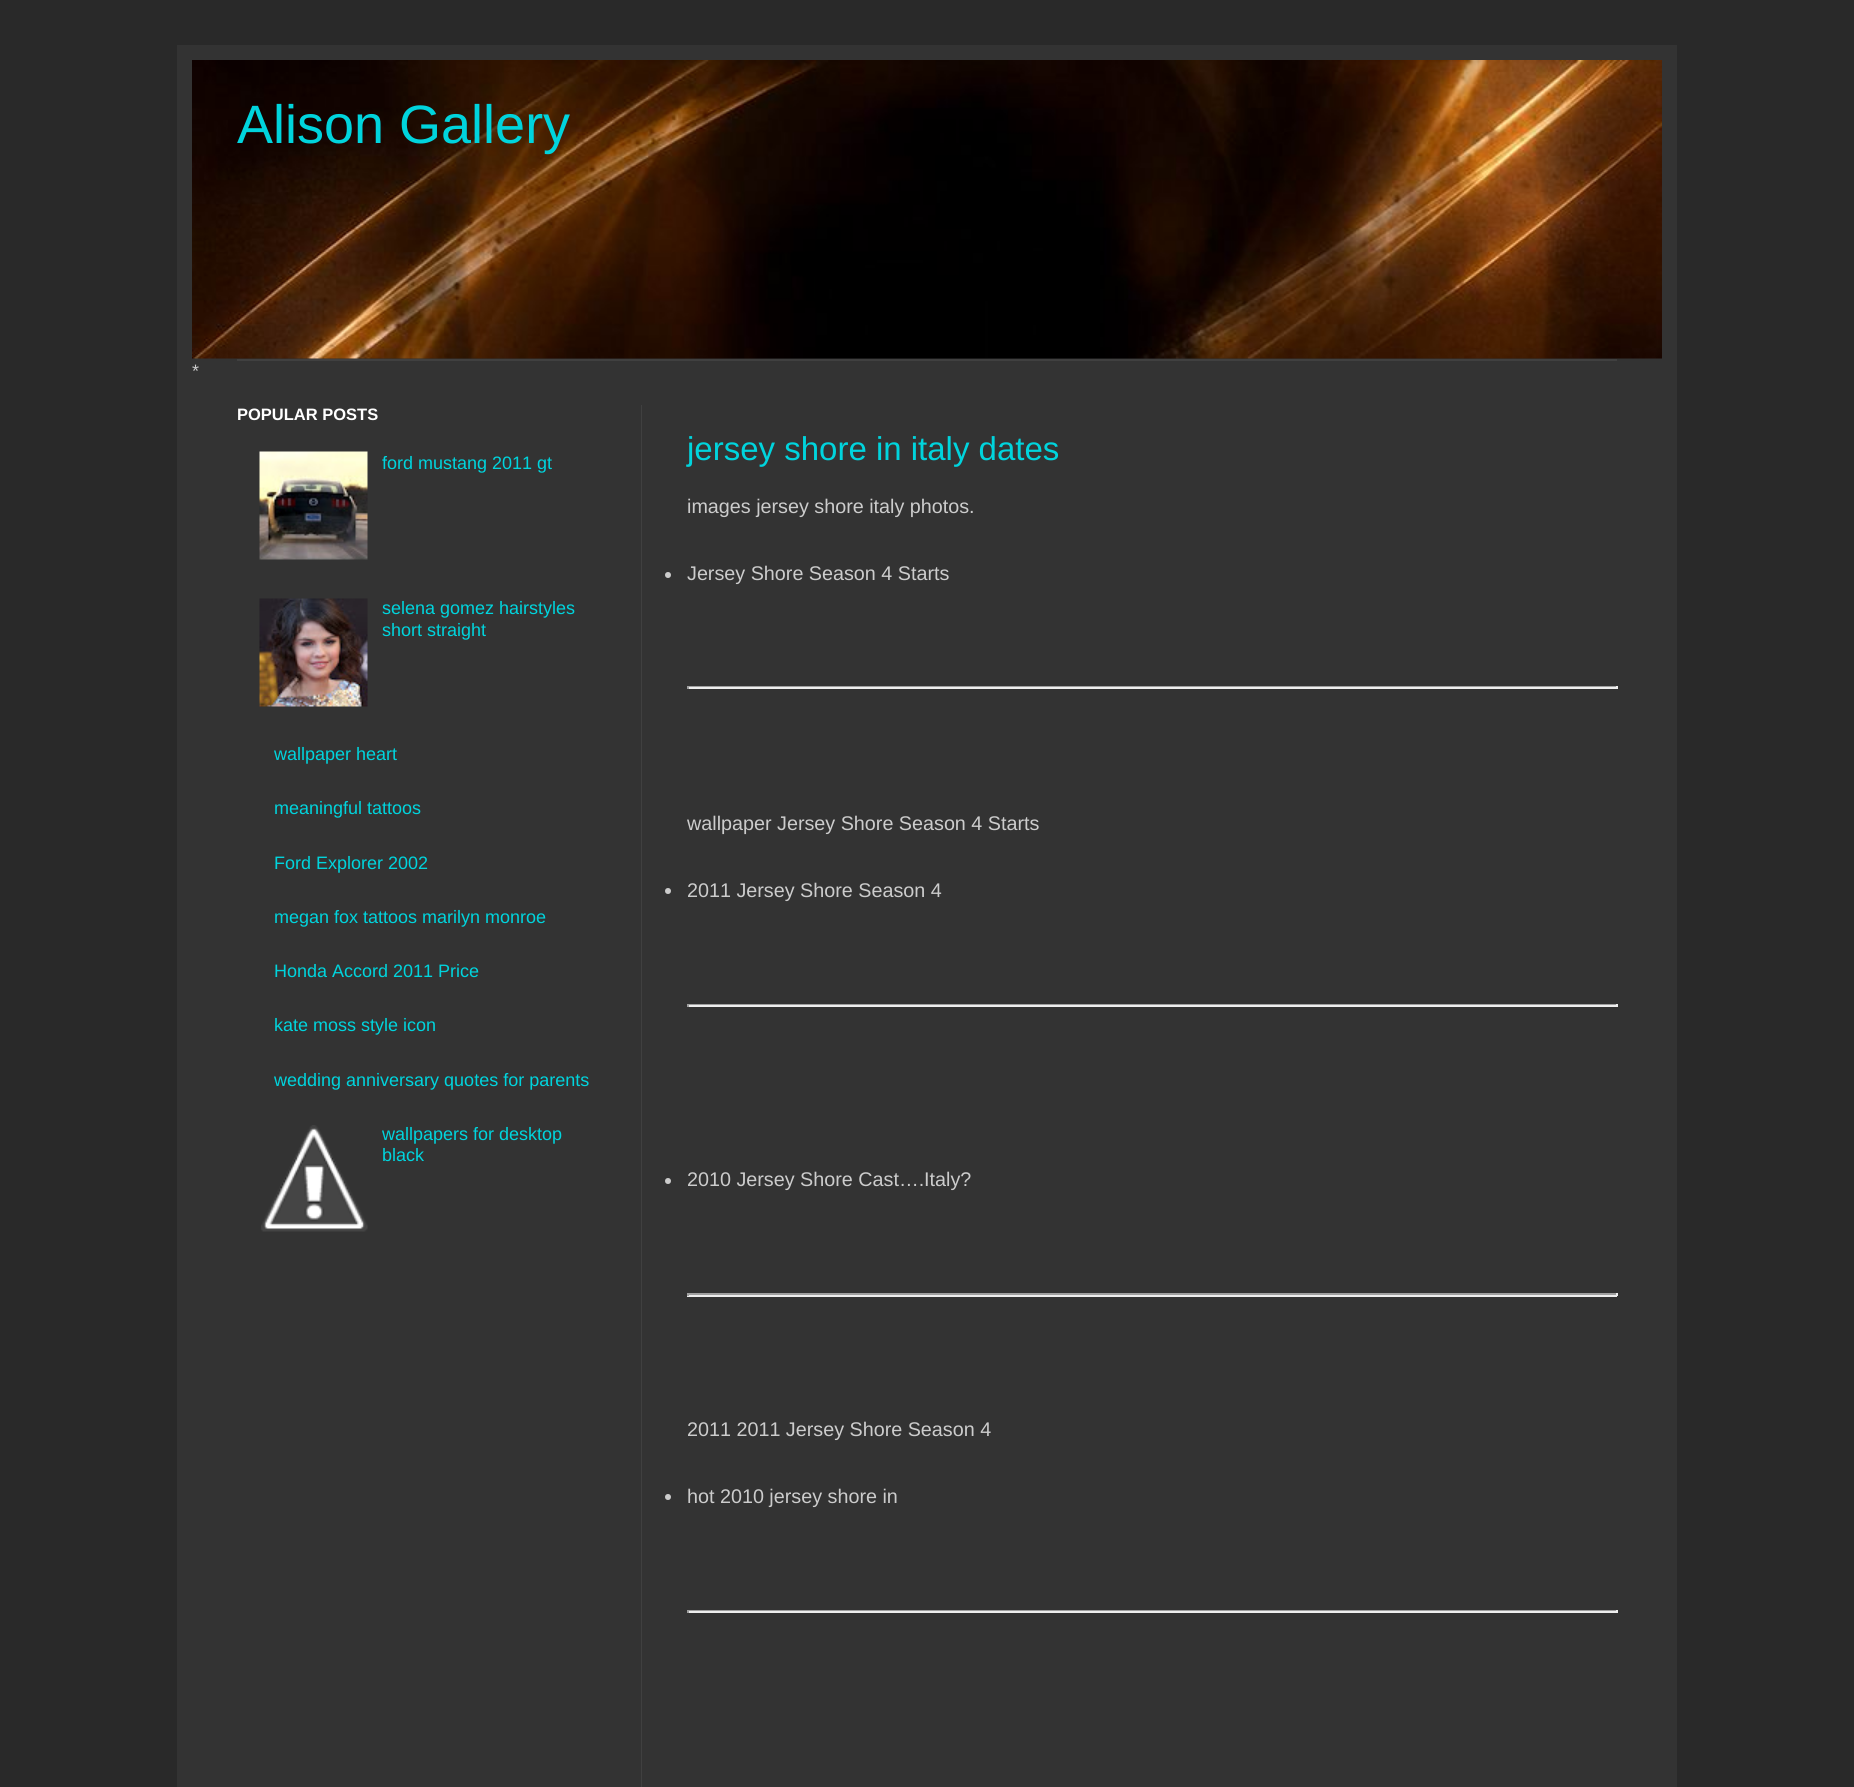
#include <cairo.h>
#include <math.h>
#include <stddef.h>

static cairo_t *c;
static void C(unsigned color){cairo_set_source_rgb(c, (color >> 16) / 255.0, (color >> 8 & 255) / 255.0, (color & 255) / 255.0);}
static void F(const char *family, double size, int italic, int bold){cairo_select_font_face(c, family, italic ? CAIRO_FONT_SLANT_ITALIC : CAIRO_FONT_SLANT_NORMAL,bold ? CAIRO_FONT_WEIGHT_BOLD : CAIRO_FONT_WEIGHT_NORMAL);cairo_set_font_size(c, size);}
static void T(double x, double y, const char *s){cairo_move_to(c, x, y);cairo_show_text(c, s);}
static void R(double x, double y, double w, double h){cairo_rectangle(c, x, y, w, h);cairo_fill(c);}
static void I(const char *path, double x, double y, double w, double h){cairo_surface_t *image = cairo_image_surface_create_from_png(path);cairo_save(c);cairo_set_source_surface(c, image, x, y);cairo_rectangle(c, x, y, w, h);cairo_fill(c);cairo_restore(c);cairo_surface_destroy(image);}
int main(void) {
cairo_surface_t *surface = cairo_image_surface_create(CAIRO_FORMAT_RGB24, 1854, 1787);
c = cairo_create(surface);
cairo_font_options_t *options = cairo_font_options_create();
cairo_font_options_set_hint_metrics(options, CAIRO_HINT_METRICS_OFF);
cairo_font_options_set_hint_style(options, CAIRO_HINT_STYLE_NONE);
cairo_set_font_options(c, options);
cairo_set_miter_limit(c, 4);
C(0x292929);
cairo_paint(c);
C(0x333333);
R(177,45,1500,1742);
I("1.png",192,60,1470,299);
F("Liberation Sans",54,0,0);
C(0x00d4dd);
T(237,143,"Alison Gallery");
C(0x404040);
R(237,359,1380,2);
F("Liberation Sans",18,0,0);
C(0xcccccc);
T(192,377,"*");
C(0x404040);
R(641,405,1,1382);
F("Liberation Sans",16.5,0,1);
C(0xffffff);
T(237,420,"POPULAR POSTS");
I("2.png",259,451,109,109);
F("Liberation Sans",18,0,0);
C(0x00d4dd);
T(382,469,"ford mustang 2011 gt");
I("3.png",259,598,109,109);
T(382,614,"selena gomez hairstyles");
T(382,636,"short straight");
T(274,760,"wallpaper heart");
T(274,814,"meaningful tattoos");
T(274,869,"Ford Explorer 2002");
T(274,923,"megan fox tattoos marilyn monroe");
T(274,977,"Honda Accord 2011 Price");
T(274,1031,"kate moss style icon");
T(274,1086,"wedding anniversary quotes for parents");
I("4.png",261,1125,107,107);
T(382,1140,"wallpapers for desktop");
T(382,1161,"black");
F("Liberation Sans",33,0,0);
T(687,460,"jersey shore in italy dates");
F("Liberation Sans",19.75,0,0);
C(0xcccccc);
T(687,513,"images jersey shore italy photos.");
cairo_new_path(c);
cairo_arc(c,668,575,3,0,2 * M_PI);
cairo_fill(c);
T(687,580,"Jersey Shore Season 4 Starts");
C(0x9f9f9f);
R(687,686,930,1);
C(0xeeeeee);
R(1616,686,2,3);
R(687,687,930,2);
C(0x9f9f9f);
R(687,686,2,3);
C(0xcccccc);
T(687,830,"wallpaper Jersey Shore Season 4 Starts");
cairo_new_path(c);
cairo_arc(c,668,891,3,0,2 * M_PI);
cairo_fill(c);
T(687,897,"2011 Jersey Shore Season 4");
C(0x9f9f9f);
R(687,1004,930,1);
C(0xeeeeee);
R(1616,1004,2,3);
R(687,1005,930,2);
C(0x9f9f9f);
R(687,1004,2,3);
C(0xcccccc);
cairo_new_path(c);
cairo_arc(c,668,1181,3,0,2 * M_PI);
cairo_fill(c);
T(687,1186,"2010 Jersey Shore Cast….Italy?");
C(0x9f9f9f);
R(687,1293,930,2);
C(0xeeeeee);
R(1616,1293,2,3);
R(687,1295,930,2);
C(0x9f9f9f);
R(687,1293,2,3);
C(0xcccccc);
T(687,1436,"2011 2011 Jersey Shore Season 4");
cairo_new_path(c);
cairo_arc(c,668,1497,3,0,2 * M_PI);
cairo_fill(c);
T(687,1503,"hot 2010 jersey shore in");
C(0x9f9f9f);
R(687,1610,930,1);
C(0xeeeeee);
R(1616,1610,2,3);
R(687,1611,930,2);
C(0x9f9f9f);
R(687,1610,2,3);
cairo_surface_write_to_png(surface, "o.png");
cairo_font_options_destroy(options);
cairo_destroy(c);
cairo_surface_destroy(surface);
return 0;
}
